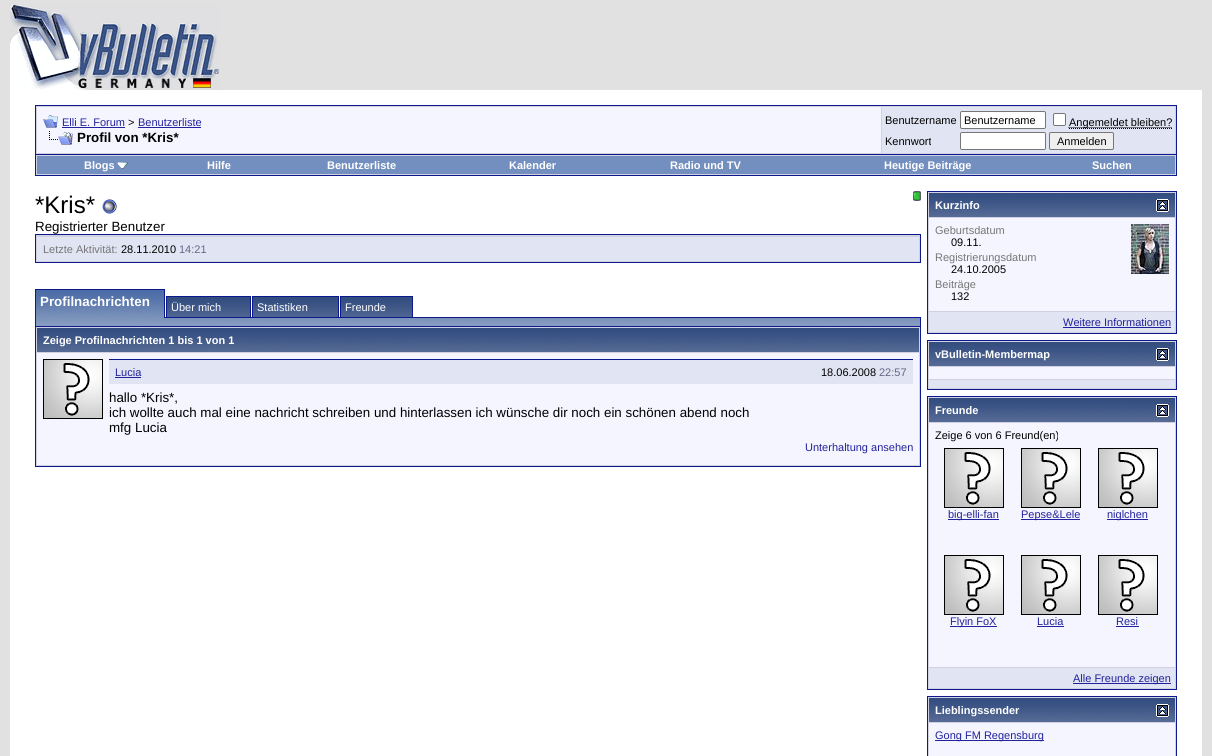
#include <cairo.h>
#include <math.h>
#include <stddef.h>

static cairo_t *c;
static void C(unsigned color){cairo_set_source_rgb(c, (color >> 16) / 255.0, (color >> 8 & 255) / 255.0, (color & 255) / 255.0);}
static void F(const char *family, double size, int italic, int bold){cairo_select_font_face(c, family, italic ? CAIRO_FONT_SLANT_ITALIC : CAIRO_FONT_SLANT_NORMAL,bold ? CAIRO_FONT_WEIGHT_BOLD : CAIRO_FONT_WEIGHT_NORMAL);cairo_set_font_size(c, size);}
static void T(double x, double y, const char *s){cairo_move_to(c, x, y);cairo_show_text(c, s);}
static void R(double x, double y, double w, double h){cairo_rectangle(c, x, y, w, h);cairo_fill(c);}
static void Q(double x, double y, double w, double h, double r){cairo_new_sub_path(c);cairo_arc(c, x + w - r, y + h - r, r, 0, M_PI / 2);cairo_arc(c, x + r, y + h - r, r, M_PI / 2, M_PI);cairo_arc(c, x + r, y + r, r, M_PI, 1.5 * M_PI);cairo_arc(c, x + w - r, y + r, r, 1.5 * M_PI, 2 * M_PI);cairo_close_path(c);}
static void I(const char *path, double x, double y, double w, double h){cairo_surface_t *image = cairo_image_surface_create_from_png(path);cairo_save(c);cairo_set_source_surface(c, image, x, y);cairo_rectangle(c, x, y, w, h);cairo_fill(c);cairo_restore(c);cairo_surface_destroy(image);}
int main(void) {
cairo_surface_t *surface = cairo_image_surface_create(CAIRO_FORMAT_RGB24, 1212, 756);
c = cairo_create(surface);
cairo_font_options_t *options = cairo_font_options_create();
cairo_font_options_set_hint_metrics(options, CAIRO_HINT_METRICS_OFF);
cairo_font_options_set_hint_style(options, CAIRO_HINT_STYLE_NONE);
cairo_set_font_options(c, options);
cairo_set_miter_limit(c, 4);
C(0xe1e1e2);
cairo_paint(c);
I("1.png",10,5,209,85);
C(0xffffff);
R(10,90,1192,666);
C(0xd1d1e1);
cairo_rectangle(c,35.5,105.5,1141,49);
cairo_fill_preserve(c);
C(0x0b198c);
cairo_set_line_width(c,1);
cairo_stroke(c);
C(0xf5f5ff);
R(37,107,844,46);
I("2.png",43,115,15,13);
F("Liberation Sans",11,0,0);
C(0x22229c);
T(62,126,"Elli E. Forum");
R(62,127,63,1);
C(0x000000);
T(128,126,">");
C(0x22229c);
T(138,126,"Benutzerliste");
R(138,127,63,1);
I("3.png",49,131,24,14);
F("Liberation Sans",13.35,0,1);
C(0x000000);
T(77,142,"Profil von *Kris*");
C(0xe1e4f2);
R(882,107,293,46);
F("Liberation Sans",11,0,0);
C(0x000000);
T(885,124,"Benutzername");
C(0xffffff);
Q(960.5,111.5,85,17,1.5);
cairo_fill_preserve(c);
C(0x767676);
cairo_stroke(c);
C(0x000000);
T(964,124,"Benutzername");
C(0xffffff);
Q(1053.5,113.5,12,12,1.5);
cairo_fill_preserve(c);
C(0x767676);
cairo_stroke(c);
cairo_new_path(c);
cairo_move_to(c,1069,128.5);
cairo_line_to(c,1172,128.5);
C(0x000000);
cairo_set_dash(c,(double[]){1,1},2,0);
cairo_stroke(c);
cairo_new_path(c);
cairo_move_to(c,1068.5,127.5);
cairo_line_to(c,1172,127.5);
cairo_stroke(c);
T(1069,126,"Angemeldet bleiben?");
T(885,145,"Kennwort");
C(0xffffff);
Q(960.5,132.5,85,17,1.5);
cairo_fill_preserve(c);
C(0x767676);
cairo_set_dash(c,NULL,0,0);
cairo_stroke(c);
C(0xefefef);
Q(1049.5,132.5,64,17,1.5);
cairo_fill_preserve(c);
C(0x767676);
cairo_stroke(c);
C(0x000000);
T(1057,145,"Anmelden");
C(0xd1d1e1);
R(36,155,1140,20);
C(0x0b198c);
R(1176,155,1,21);
R(35,175,1142,1);
R(35,155,1,21);
C(0x738fbf);
R(37,156,1138,18);
F("Liberation Sans",11,0,1);
C(0xffffff);
T(84,169,"Blogs");
I("4.png",117,162,11,7);
T(207,169,"Hilfe");
T(327,169,"Benutzerliste");
T(509,169,"Kalender");
T(670,169,"Radio und TV");
T(884,169,"Heutige Beiträge");
T(1092,169,"Suchen");
F("Liberation Sans",24,0,0);
C(0x000000);
T(35,213,"*Kris*");
I("5.png",102,199,15,15);
I("6.png",913,191,8,10);
F("Liberation Sans",13.35,0,0);
T(35,231,"Registrierter Benutzer");
C(0xd1d1e1);
cairo_rectangle(c,35.5,234.5,885,28);
cairo_fill_preserve(c);
C(0x0b198c);
cairo_stroke(c);
C(0xe1e4f2);
R(37,237,882,24);
F("Liberation Sans",11,0,0);
C(0x777777);
T(43,253,"Letzte Aktivität:");
C(0x000000);
T(121,253,"28.11.2010");
C(0x666686);
T(179,253,"14:21");
I("7.png",36,290,128,28);
C(0x0b198c);
R(35,289,130,1);
R(164,289,1,29);
R(35,317,1,9);
R(35,289,1,29);
F("Liberation Sans",13.35,0,1);
C(0xffffff);
T(40,306,"Profilnachrichten");
I("8.png",167,297,83,20);
C(0x0b198c);
R(165,317,756,1);
cairo_rectangle(c,166.5,296.5,84,21);
cairo_stroke(c);
F("Liberation Sans",11,0,0);
C(0xffffff);
T(171,311,"Über mich");
I("9.png",253,297,85,20);
cairo_rectangle(c,252.5,296.5,86,21);
C(0x0b198c);
cairo_stroke(c);
C(0xffffff);
T(257,311,"Statistiken");
I("10.png",341,297,71,20);
cairo_rectangle(c,340.5,296.5,72,21);
C(0x0b198c);
cairo_stroke(c);
C(0xffffff);
T(345,311,"Freunde");
C(0x869bbf);
R(36,323,884,3);
I("11.png",36,318,884,5);
C(0x0b198c);
R(920,317,1,9);
C(0xd1d1e1);
cairo_rectangle(c,35.5,326.5,885,140);
cairo_fill_preserve(c);
C(0x0b198c);
cairo_stroke(c);
I("12.png",37,328,882,24);
F("Liberation Sans",11,0,1);
C(0xffffff);
T(43,344,"Zeige Profilnachrichten 1 bis 1 von 1");
C(0xf5f5ff);
R(37,353,882,112);
I("13.png",43,359,60,60);
C(0x0b198c);
R(109,359,804,1);
C(0xe1e4f2);
R(109,360,804,24);
F("Liberation Sans",11,0,0);
C(0x22229c);
T(115,376,"Lucia");
R(115,377,26,1);
C(0x000000);
T(821,376,"18.06.2008");
C(0x666686);
T(879,376,"22:57");
F("Liberation Sans",13.35,0,0);
C(0x000000);
T(109,402,"hallo *Kris*,");
T(109,417,"ich wollte auch mal eine nachricht schreiben und hinterlassen ich wünsche dir noch ein schönen abend noch");
T(109,432,"mfg Lucia");
F("Liberation Sans",11,0,0);
C(0x22229c);
T(805,451,"Unterhaltung ansehen");
C(0xd1d1e1);
cairo_rectangle(c,927.5,191.5,249,142);
cairo_fill_preserve(c);
C(0x0b198c);
cairo_stroke(c);
I("14.png",929,193,246,24);
F("Liberation Sans",11,0,1);
C(0xffffff);
T(935,209,"Kurzinfo");
I("15.png",1156,199,13,13);
C(0xf5f5ff);
R(929,218,246,93);
F("Liberation Sans",11,0,0);
C(0x777777);
T(935,234,"Geburtsdatum");
C(0x000000);
T(951,246,"09.11.");
C(0x777777);
T(935,261,"Registrierungsdatum");
C(0x000000);
T(951,273,"24.10.2005");
C(0x777777);
T(935,288,"Beiträge");
C(0x000000);
T(951,300,"132");
I("16.png",1131,224,38,50);
C(0xe1e4f2);
R(929,312,246,20);
C(0x22229c);
T(1063,326,"Weitere Informationen");
R(1063,327,108,1);
C(0xd1d1e1);
cairo_rectangle(c,927.5,340.5,249,49);
cairo_fill_preserve(c);
C(0x0b198c);
cairo_stroke(c);
I("14.png",929,342,246,24);
F("Liberation Sans",11,0,1);
C(0xffffff);
T(935,358,"vBulletin-Membermap");
I("15.png",1156,348,13,13);
C(0xf5f5ff);
R(929,367,246,12);
C(0xe1e4f2);
R(929,380,246,8);
C(0xd1d1e1);
cairo_rectangle(c,927.5,396.5,249,293);
cairo_fill_preserve(c);
C(0x0b198c);
cairo_stroke(c);
I("14.png",929,398,246,24);
C(0xffffff);
T(935,414,"Freunde");
I("15.png",1156,404,13,13);
C(0xf5f5ff);
R(929,423,246,244);
F("Liberation Sans",11,0,0);
C(0x000000);
T(935,439,"Zeige 6 von 6 Freund(en)");
I("13.png",944,448,60,60);
C(0x22229c);
R(948,519,51,1);
T(948,518,"big-elli-fan");
I("13.png",1021,448,60,60);
R(1021,519,59,1);
T(1021,518,"Pepse&Lele");
I("13.png",1098,448,60,60);
R(1107,519,41,1);
T(1107,518,"niglchen");
I("13.png",944,555,60,60);
R(950,626,47,1);
T(950,625,"Flyin FoX");
I("13.png",1021,555,60,60);
T(1037,625,"Lucia");
R(1037,626,27,1);
I("13.png",1098,555,60,60);
T(1116,625,"Resi");
R(1116,626,23,1);
C(0xe1e4f2);
R(929,668,246,20);
C(0x22229c);
R(1073,683,98,1);
T(1073,682,"Alle Freunde zeigen");
C(0xd1d1e1);
cairo_rectangle(c,927.5,696.5,249,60);
cairo_fill_preserve(c);
C(0x0b198c);
cairo_stroke(c);
I("14.png",929,698,246,24);
F("Liberation Sans",11,0,1);
C(0xffffff);
T(935,714,"Lieblingssender");
I("15.png",1156,704,13,13);
C(0xf5f5ff);
R(929,723,246,33);
C(0x22229c);
R(935,740,109,1);
F("Liberation Sans",11,0,0);
T(935,739,"Gong FM Regensburg");
cairo_surface_write_to_png(surface, "o.png");
cairo_font_options_destroy(options);
cairo_destroy(c);
cairo_surface_destroy(surface);
return 0;
}
